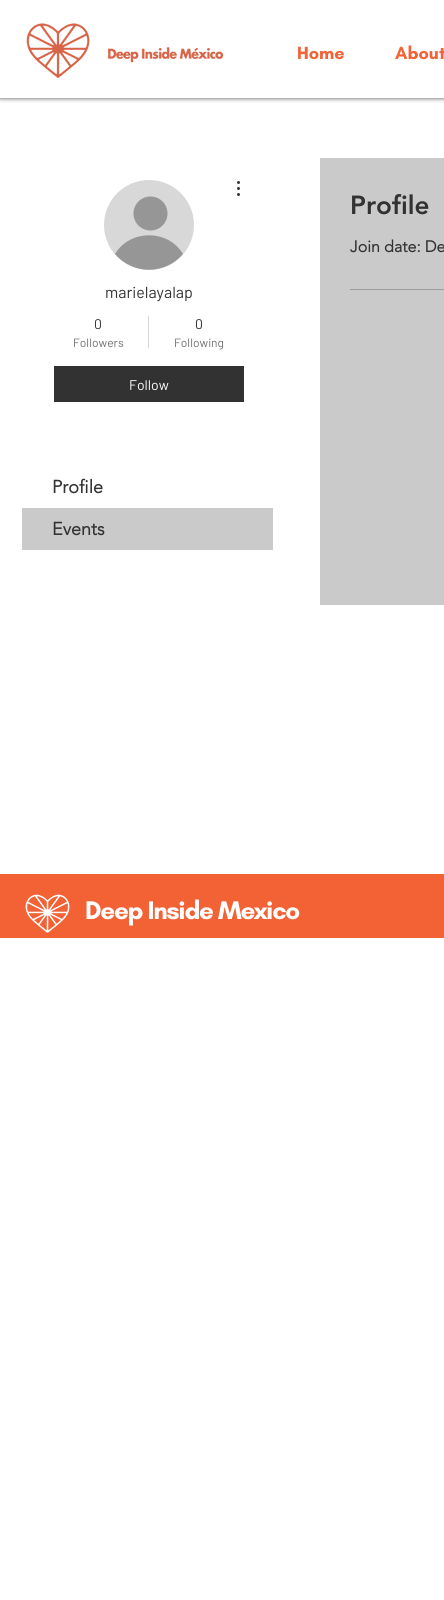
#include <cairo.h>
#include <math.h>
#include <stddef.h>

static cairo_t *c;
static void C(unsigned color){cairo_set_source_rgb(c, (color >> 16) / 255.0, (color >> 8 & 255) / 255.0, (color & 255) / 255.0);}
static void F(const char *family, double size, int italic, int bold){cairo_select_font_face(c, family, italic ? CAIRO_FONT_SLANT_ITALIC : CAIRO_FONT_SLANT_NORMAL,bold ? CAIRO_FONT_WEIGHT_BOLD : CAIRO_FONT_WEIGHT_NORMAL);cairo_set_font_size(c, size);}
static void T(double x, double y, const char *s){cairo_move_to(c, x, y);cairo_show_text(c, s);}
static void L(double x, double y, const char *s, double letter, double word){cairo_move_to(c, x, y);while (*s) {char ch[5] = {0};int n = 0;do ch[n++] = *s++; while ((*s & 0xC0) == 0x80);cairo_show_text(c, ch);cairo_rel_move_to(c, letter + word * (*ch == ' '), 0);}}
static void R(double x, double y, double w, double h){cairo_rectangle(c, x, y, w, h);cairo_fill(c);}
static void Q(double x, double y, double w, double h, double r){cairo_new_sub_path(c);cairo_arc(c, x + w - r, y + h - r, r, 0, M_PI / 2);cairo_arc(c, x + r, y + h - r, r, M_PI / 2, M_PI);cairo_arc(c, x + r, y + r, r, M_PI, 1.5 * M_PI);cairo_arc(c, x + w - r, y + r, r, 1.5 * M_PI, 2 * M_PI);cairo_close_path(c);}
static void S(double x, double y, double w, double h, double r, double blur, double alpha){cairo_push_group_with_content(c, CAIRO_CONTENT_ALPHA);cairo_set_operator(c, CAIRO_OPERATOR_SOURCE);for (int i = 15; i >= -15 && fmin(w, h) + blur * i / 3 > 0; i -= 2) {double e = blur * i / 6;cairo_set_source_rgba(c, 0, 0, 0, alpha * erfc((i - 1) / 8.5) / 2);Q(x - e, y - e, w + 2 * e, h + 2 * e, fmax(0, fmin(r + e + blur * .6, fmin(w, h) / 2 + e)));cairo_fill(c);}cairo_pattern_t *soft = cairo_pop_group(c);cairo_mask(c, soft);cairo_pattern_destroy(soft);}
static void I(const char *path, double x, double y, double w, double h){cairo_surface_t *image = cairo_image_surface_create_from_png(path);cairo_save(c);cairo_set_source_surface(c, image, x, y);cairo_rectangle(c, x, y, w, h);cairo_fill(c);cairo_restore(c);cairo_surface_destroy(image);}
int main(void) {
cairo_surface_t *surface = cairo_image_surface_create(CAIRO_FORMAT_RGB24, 444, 1600);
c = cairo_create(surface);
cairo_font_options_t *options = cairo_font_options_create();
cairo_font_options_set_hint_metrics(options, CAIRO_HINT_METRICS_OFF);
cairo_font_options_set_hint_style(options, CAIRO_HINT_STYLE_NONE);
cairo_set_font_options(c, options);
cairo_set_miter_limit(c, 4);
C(0xffffff);
cairo_paint(c);
cairo_save(c);
cairo_rectangle(c,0,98,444,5);
cairo_clip(c);
C(0x000000);
S(0,0,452,98,0,2.5,.7);
cairo_restore(c);
I("1.png",26,23,64,55);
I("2.png",107,47,117,16);
F("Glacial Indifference",18,0,1);
C(0xf36235);
T(297,59,"Home");
T(395,59,"About");
C(0xcacaca);
R(320,158,124,447);
F("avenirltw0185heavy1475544 Black",26,0,0);
C(0x323232);
T(350,214,"Profile");
F("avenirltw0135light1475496",16,0,1);
T(350,252,"Join date: De");
C(0x9c9c9c);
R(350,289,94,1);
C(0xd8d8d8);
cairo_new_path(c);
cairo_arc(c,149,225,45,0,2 * M_PI);
cairo_fill(c);
C(0x969696);
cairo_arc(c,150.5,213.5,17,0,2 * M_PI);
cairo_fill(c);
cairo_new_path(c);
cairo_move_to(c,183,254);
cairo_curve_to(c,165,275,133,275,115,254);
cairo_curve_to(c,130,229,168,229,183,254);
cairo_close_path(c);
cairo_fill(c);
I("3.png",237,181,3,15);
F("Barlow",16,0,0);
C(0x323232);
T(105,298,"marielayalap");
F("Barlow",14,0,0);
T(94,329,"0");
F("Barlow",12,0,0);
C(0x707070);
T(73,347,"Followers");
C(0xd6d6d6);
R(148,316,1,32);
F("Barlow",14,0,0);
C(0x323232);
T(195,329,"0");
F("Barlow",12,0,0);
C(0x707070);
T(174,347,"Following");
C(0x323232);
R(54,366,190,36);
F("Barlow",14,0,0);
C(0xffffff);
T(129,390,"Follow");
F("avenirltw0135light1475496",18,0,1);
C(0x323232);
T(52,493,"Profile");
C(0xcacaca);
R(22,508,251,42);
C(0x323232);
T(52,535,"Events");
C(0xf36235);
R(0,874,444,64);
I("4.png",25,894,45,39);
F("Glacial Indifference",26,0,1);
C(0xffffff);
L(85,919,"Deep Inside Mexico",-1.25,0);
cairo_surface_write_to_png(surface, "o.png");
cairo_font_options_destroy(options);
cairo_destroy(c);
cairo_surface_destroy(surface);
return 0;
}
